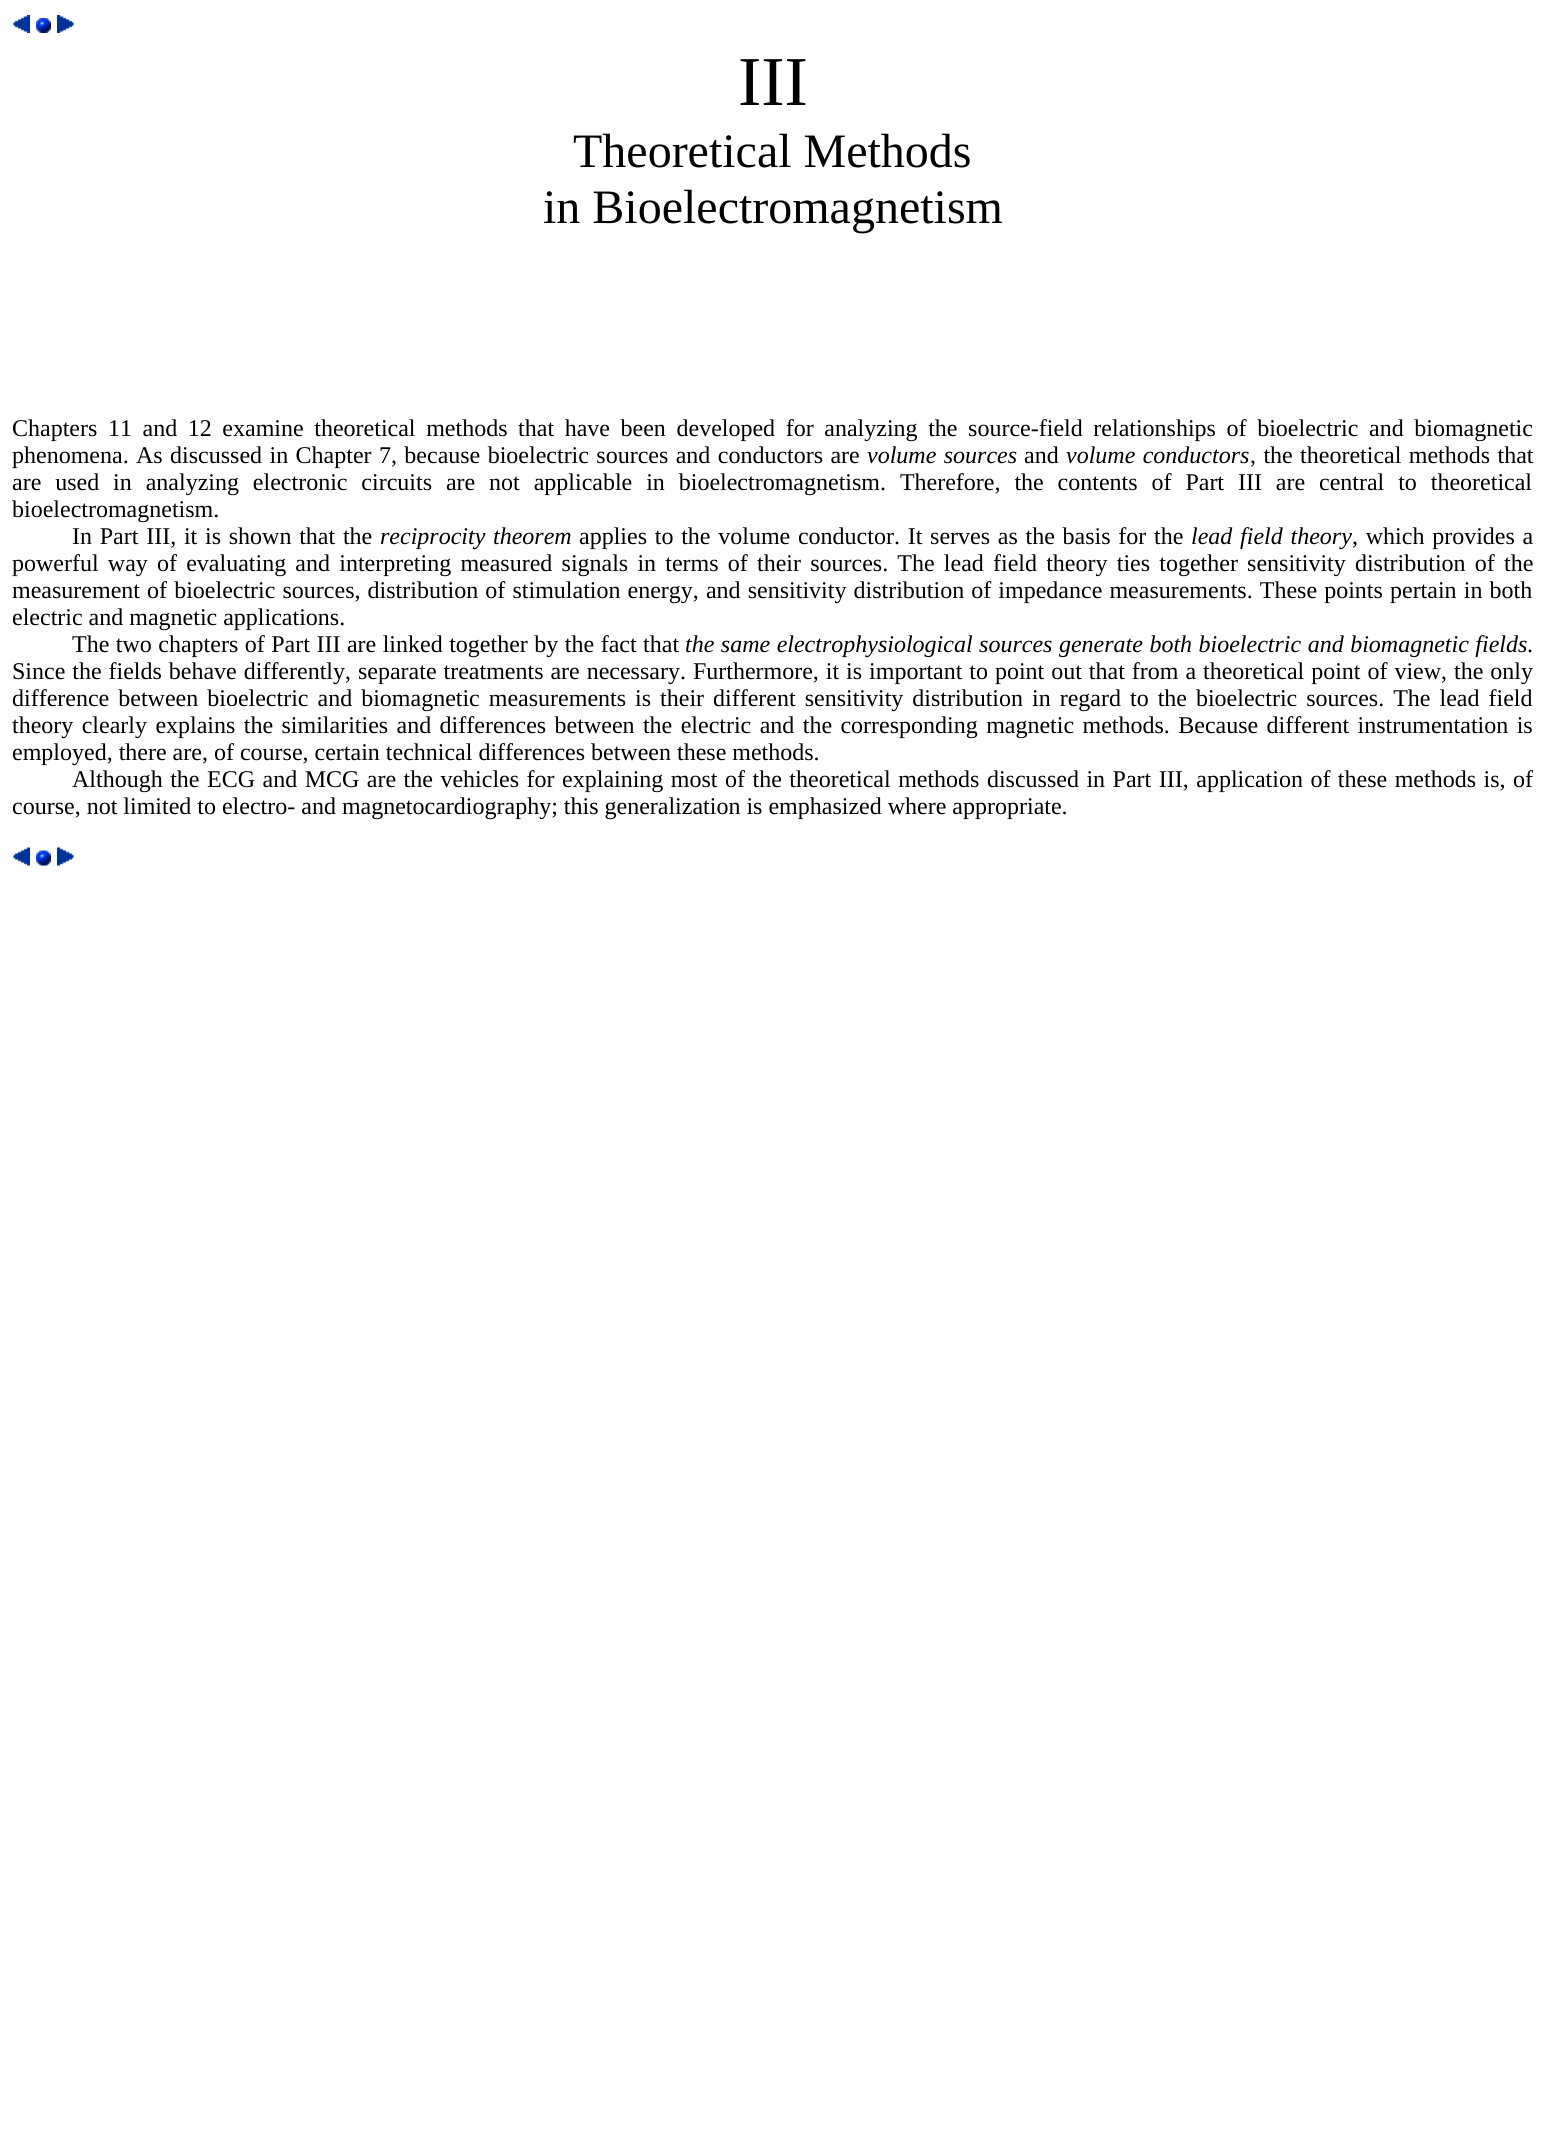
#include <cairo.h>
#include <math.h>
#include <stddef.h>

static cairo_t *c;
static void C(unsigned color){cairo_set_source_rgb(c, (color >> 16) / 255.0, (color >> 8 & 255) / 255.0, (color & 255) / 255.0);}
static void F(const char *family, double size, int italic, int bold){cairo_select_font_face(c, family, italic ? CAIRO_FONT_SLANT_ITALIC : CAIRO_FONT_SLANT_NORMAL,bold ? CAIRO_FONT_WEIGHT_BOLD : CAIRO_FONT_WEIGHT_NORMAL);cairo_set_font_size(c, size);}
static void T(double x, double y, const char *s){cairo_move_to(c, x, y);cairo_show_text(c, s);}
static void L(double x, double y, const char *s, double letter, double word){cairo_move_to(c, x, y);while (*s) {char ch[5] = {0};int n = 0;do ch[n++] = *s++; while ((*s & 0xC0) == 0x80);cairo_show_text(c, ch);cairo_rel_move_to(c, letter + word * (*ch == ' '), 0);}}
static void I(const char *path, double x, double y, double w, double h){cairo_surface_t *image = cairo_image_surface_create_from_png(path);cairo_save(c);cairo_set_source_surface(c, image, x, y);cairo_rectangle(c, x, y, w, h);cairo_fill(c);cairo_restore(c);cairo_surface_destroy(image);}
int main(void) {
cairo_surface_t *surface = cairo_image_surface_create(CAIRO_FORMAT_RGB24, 1545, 2150);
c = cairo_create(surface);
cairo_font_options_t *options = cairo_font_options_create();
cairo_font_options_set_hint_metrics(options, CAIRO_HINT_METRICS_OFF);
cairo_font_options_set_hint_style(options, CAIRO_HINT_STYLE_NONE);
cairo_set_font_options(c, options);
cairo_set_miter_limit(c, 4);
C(0xffffff);
cairo_paint(c);
I("1.png",13,15,17,18);
I("2.png",36,18,15,15);
I("3.png",57,15,17,18);
F("Liberation Serif",70,0,0);
C(0x000000);
T(738,105,"III");
F("Liberation Serif",48,0,0);
T(573,167,"Theoretical Methods");
T(543,223,"in Bioelectromagnetism");
F("Liberation Serif",24,0,0);
L(12,436,"Chapters 11 and 12 examine theoretical methods that have been developed for analyzing the source-field relationships of bioelectric and biomagnetic",0,4.6);
L(12,463,"phenomena. As discussed in Chapter 7, because bioelectric sources and conductors are",0,1.4);
F("Liberation Serif",24,1,0);
L(867,463,"volume sources",0,1.4);
F("Liberation Serif",24,0,0);
T(1024,463,"and");
F("Liberation Serif",24,1,0);
L(1066,463,"volume conductors",0,1.4);
F("Liberation Serif",24,0,0);
L(1250,463,", the theoretical methods that",0,1.4);
L(12,490,"are used in analyzing electronic circuits are not applicable in bioelectromagnetism. Therefore, the contents of Part III are central to theoretical",0,7.9);
T(12,517,"bioelectromagnetism.");
L(72,544,"In Part III, it is shown that the",0,1.75);
F("Liberation Serif",24,1,0);
L(380,544,"reciprocity theorem",0,1.75);
F("Liberation Serif",24,0,0);
L(579,544,"applies to the volume conductor. It serves as the basis for the",0,1.75);
F("Liberation Serif",24,1,0);
L(1191,544,"lead field theory",0,1.75);
F("Liberation Serif",24,0,0);
L(1352,544,", which provides a",0,1.75);
L(12,571,"powerful way of evaluating and interpreting measured signals in terms of their sources. The lead field theory ties together sensitivity distribution of the",0,3.2);
L(12,598,"measurement of bioelectric sources, distribution of stimulation energy, and sensitivity distribution of impedance measurements. These points pertain in both",0,1.1);
T(12,625,"electric and magnetic applications.");
L(72,652,"The two chapters of Part III are linked together by the fact that",0,.5);
F("Liberation Serif",24,1,0);
L(685,652,"the same electrophysiological sources generate both bioelectric and biomagnetic fields",0,.5);
F("Liberation Serif",24,0,0);
T(1527,652,".");
L(12,679,"Since the fields behave differently, separate treatments are necessary. Furthermore, it is important to point out that from a theoretical point of view, the only",0,.95);
L(12,706,"difference between bioelectric and biomagnetic measurements is their different sensitivity distribution in regard to the bioelectric sources. The lead field",0,3);
L(12,733,"theory clearly explains the similarities and differences between the electric and the corresponding magnetic methods. Because different instrumentation is",0,2.4);
T(12,760,"employed, there are, of course, certain technical differences between these methods.");
L(72,787,"Although the ECG and MCG are the vehicles for explaining most of the theoretical methods discussed in Part III, application of these methods is, of",0,1.5);
T(12,814,"course, not limited to electro- and magnetocardiography; this generalization is emphasized where appropriate.");
I("4.png",13,847,17,19);
I("5.png",36,850,15,16);
I("6.png",57,847,17,19);
cairo_surface_write_to_png(surface, "o.png");
cairo_font_options_destroy(options);
cairo_destroy(c);
cairo_surface_destroy(surface);
return 0;
}
